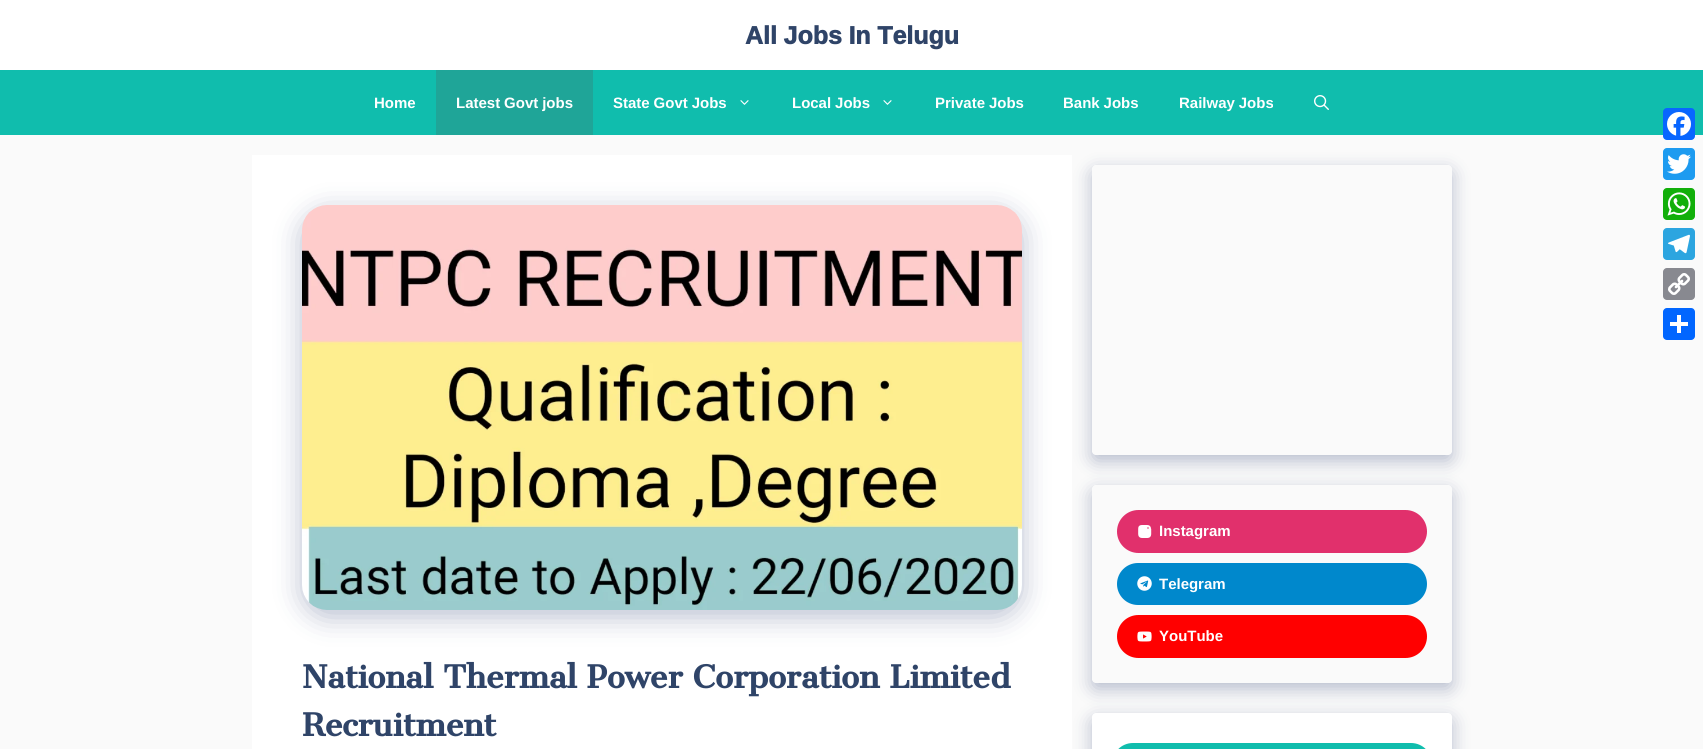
#include <cairo.h>
#include <math.h>
#include <stddef.h>

static cairo_t *c;
static void C(unsigned color){cairo_set_source_rgb(c, (color >> 16) / 255.0, (color >> 8 & 255) / 255.0, (color & 255) / 255.0);}
static void F(const char *family, double size, int italic, int bold){cairo_select_font_face(c, family, italic ? CAIRO_FONT_SLANT_ITALIC : CAIRO_FONT_SLANT_NORMAL,bold ? CAIRO_FONT_WEIGHT_BOLD : CAIRO_FONT_WEIGHT_NORMAL);cairo_set_font_size(c, size);}
static void T(double x, double y, const char *s){cairo_move_to(c, x, y);cairo_show_text(c, s);}
static void R(double x, double y, double w, double h){cairo_rectangle(c, x, y, w, h);cairo_fill(c);}
static void Q(double x, double y, double w, double h, double r){cairo_new_sub_path(c);cairo_arc(c, x + w - r, y + h - r, r, 0, M_PI / 2);cairo_arc(c, x + r, y + h - r, r, M_PI / 2, M_PI);cairo_arc(c, x + r, y + r, r, M_PI, 1.5 * M_PI);cairo_arc(c, x + w - r, y + r, r, 1.5 * M_PI, 2 * M_PI);cairo_close_path(c);}
static void S(double x, double y, double w, double h, double r, double blur, double alpha){cairo_push_group_with_content(c, CAIRO_CONTENT_ALPHA);cairo_set_operator(c, CAIRO_OPERATOR_SOURCE);for (int i = 15; i >= -15 && fmin(w, h) + blur * i / 3 > 0; i -= 2) {double e = blur * i / 6;cairo_set_source_rgba(c, 0, 0, 0, alpha * erfc((i - 1) / 8.5) / 2);Q(x - e, y - e, w + 2 * e, h + 2 * e, fmax(0, fmin(r + e + blur * .6, fmin(w, h) / 2 + e)));cairo_fill(c);}cairo_pattern_t *soft = cairo_pop_group(c);cairo_mask(c, soft);cairo_pattern_destroy(soft);}
static void I(const char *path, double x, double y, double w, double h){cairo_surface_t *image = cairo_image_surface_create_from_png(path);cairo_save(c);cairo_set_source_surface(c, image, x, y);cairo_rectangle(c, x, y, w, h);cairo_fill(c);cairo_restore(c);cairo_surface_destroy(image);}
int main(void) {
cairo_surface_t *surface = cairo_image_surface_create(CAIRO_FORMAT_RGB24, 1703, 749);
c = cairo_create(surface);
cairo_font_options_t *options = cairo_font_options_create();
cairo_font_options_set_hint_metrics(options, CAIRO_HINT_METRICS_OFF);
cairo_font_options_set_hint_style(options, CAIRO_HINT_STYLE_NONE);
cairo_set_font_options(c, options);
cairo_set_miter_limit(c, 4);
C(0xfafafa);
cairo_paint(c);
C(0xffffff);
R(0,0,1703,70);
F("Ramabhadra",25,0,1);
C(0x2f4468);
T(745,44,"All Jobs In Telugu");
C(0x10bdad);
R(0,70,1703,65);
F("Ramabhadra",15,0,0);
C(0xffffff);
T(374,108,"Home");
C(0x1fa598);
R(436,70,157,65);
C(0xffffff);
T(456,108,"Latest Govt jobs");
T(613,108,"State Govt Jobs");
I("1.png",740,100,9,5);
T(792,108,"Local Jobs");
I("1.png",883,100,9,5);
T(935,108,"Private Jobs");
T(1063,108,"Bank Jobs");
T(1179,108,"Railway Jobs");
I("2.png",1314,95,15,15);
C(0x0866ff);
Q(1663,108,32,32,4);
cairo_fill(c);
I("3.png",1667,112,24,24);
C(0x1d9bf0);
Q(1663,148,32,32,4);
cairo_fill(c);
I("4.png",1667,154,24,20);
C(0x12af0a);
Q(1663,188,32,32,4);
cairo_fill(c);
I("5.png",1667,192,24,24);
C(0x2ca5e0);
Q(1663,228,32,32,4);
cairo_fill(c);
I("6.png",1668,234,22,20);
C(0x888990);
Q(1663,268,32,32,4);
cairo_fill(c);
I("7.png",1668,273,22,22);
C(0x0166ff);
Q(1663,308,32,32,4);
cairo_fill(c);
C(0xffffff);
R(1677,315,4,18);
R(1670,322,18,4);
R(252,155,820,594);
cairo_save(c);
cairo_set_fill_rule(c,CAIRO_FILL_RULE_EVEN_ODD);
cairo_new_path(c);
cairo_move_to(c,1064,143);
cairo_line_to(c,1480,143);
cairo_line_to(c,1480,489);
cairo_line_to(c,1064,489);
cairo_close_path(c);
cairo_move_to(c,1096,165);
cairo_line_to(c,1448,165);
cairo_curve_to(c,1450,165,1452,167,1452,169);
cairo_line_to(c,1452,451);
cairo_curve_to(c,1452,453,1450,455,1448,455);
cairo_line_to(c,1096,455);
cairo_curve_to(c,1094,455,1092,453,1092,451);
cairo_line_to(c,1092,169);
cairo_curve_to(c,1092,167,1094,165,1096,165);
cairo_close_path(c);
cairo_clip(c);
C(0x172b63);
S(1092,171,360,290,4,9,.3);
cairo_restore(c);
cairo_save(c);
cairo_set_fill_rule(c,CAIRO_FILL_RULE_EVEN_ODD);
cairo_new_path(c);
cairo_move_to(c,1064,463);
cairo_line_to(c,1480,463);
cairo_line_to(c,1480,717);
cairo_line_to(c,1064,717);
cairo_close_path(c);
cairo_move_to(c,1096,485);
cairo_line_to(c,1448,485);
cairo_curve_to(c,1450,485,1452,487,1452,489);
cairo_line_to(c,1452,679);
cairo_curve_to(c,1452,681,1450,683,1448,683);
cairo_line_to(c,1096,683);
cairo_curve_to(c,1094,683,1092,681,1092,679);
cairo_line_to(c,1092,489);
cairo_curve_to(c,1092,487,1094,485,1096,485);
cairo_close_path(c);
cairo_clip(c);
C(0x172b63);
S(1092,491,360,198,4,9,.3);
cairo_restore(c);
C(0xe1306c);
Q(1117,510,310,43,21.5);
cairo_fill(c);
I("8.png",1138,525,14,13);
C(0xffffff);
T(1159,536,"Instagram");
C(0x0088cc);
Q(1117,563,310,42,21);
cairo_fill(c);
I("9.png",1137,576,15,15);
C(0xffffff);
T(1159,589,"Telegram");
C(0xff0000);
Q(1117,615,310,43,21.5);
cairo_fill(c);
I("10.png",1137,631,15,11);
C(0xffffff);
T(1159,641,"YouTube");
C(0x172b63);
S(1092,719,360,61,4,9,.3);
C(0xffffff);
Q(1092,713,360,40,4);
cairo_fill(c);
C(0x10bdad);
Q(1112,743,320,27,21);
cairo_fill(c);
C(0x172b63);
S(302,212,720,405,25,14,.3);
I("11.png",302,205,720,405);
F("Sree Krushnadevaraya",40,0,1);
C(0x2f4468);
T(302,688,"National Thermal Power Corporation Limited");
T(302,736,"Recruitment");
cairo_surface_write_to_png(surface, "o.png");
cairo_font_options_destroy(options);
cairo_destroy(c);
cairo_surface_destroy(surface);
return 0;
}
